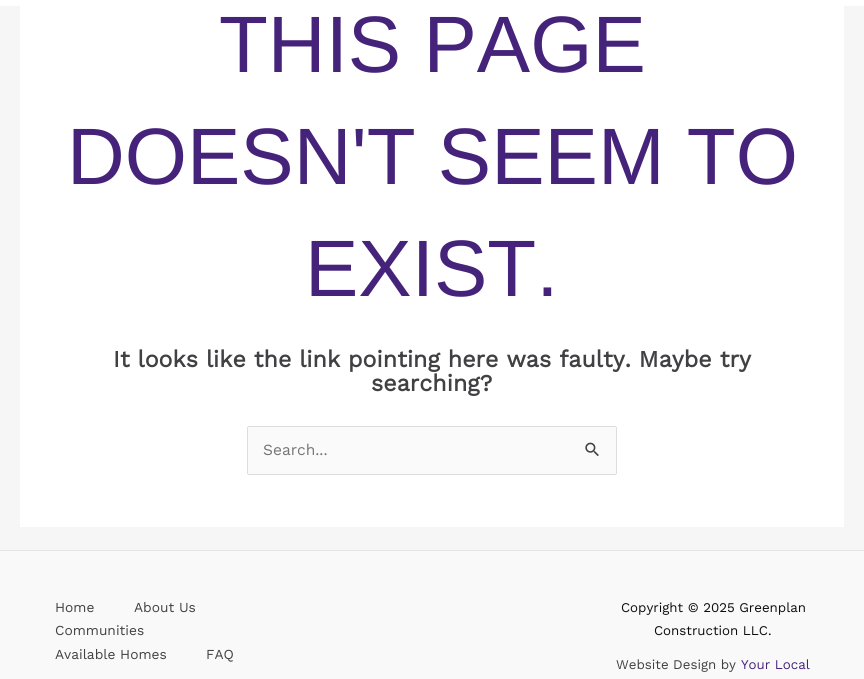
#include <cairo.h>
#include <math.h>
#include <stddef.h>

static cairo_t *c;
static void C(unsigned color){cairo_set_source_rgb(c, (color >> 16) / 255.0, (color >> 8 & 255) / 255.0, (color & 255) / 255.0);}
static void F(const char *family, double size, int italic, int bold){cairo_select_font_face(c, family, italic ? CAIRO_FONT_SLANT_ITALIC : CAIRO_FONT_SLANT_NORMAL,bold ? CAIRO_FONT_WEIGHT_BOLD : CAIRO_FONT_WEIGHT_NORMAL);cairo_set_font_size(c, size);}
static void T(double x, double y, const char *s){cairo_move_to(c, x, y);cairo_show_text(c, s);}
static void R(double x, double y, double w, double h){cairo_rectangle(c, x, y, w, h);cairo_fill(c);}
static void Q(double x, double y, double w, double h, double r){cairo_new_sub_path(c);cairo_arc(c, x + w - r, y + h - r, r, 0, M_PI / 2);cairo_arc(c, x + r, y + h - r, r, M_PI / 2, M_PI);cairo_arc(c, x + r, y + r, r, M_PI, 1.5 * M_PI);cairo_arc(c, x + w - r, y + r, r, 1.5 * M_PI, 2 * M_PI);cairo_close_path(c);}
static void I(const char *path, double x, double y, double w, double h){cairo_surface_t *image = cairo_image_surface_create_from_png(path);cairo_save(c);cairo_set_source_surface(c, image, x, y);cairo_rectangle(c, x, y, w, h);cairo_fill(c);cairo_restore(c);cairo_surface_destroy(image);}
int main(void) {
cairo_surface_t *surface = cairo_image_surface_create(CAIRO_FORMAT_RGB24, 864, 679);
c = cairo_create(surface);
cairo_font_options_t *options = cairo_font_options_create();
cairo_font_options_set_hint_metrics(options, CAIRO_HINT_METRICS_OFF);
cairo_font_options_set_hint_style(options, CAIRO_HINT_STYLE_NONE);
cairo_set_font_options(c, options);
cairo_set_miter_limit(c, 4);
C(0xf6f6f6);
cairo_paint(c);
C(0xffffff);
R(0,0,864,6);
R(20,6,824,521);
F("Liberation Sans",80,0,0);
C(0x46237a);
T(219,72,"THIS PAGE");
T(67,184,"DOESN'T SEEM TO");
T(305,296,"EXIST.");
F("Work Sans",23.25,0,1);
C(0x414042);
T(113,367,"It looks like the link pointing here was faulty. Maybe try");
T(371,391,"searching?");
C(0xfafafa);
Q(247.5,426.5,369,48,1.5);
cairo_fill_preserve(c);
C(0xdddddd);
cairo_set_line_width(c,1);
cairo_stroke(c);
F("Work Sans",15.5,0,0);
C(0x757575);
T(263,455,"Search...");
I("1.png",585,442,14,15);
C(0xf9f9f9);
R(0,551,864,128);
C(0xe6e6e6);
R(0,550,864,1);
F("Work Sans",13.75,0,0);
C(0x414042);
T(55,612,"Home");
T(134,612,"About Us");
T(55,635,"Communities");
T(55,659,"Available Homes");
T(206,659,"FAQ");
F("Work Sans",13.3,0,0);
C(0x0c0d0d);
T(621,612,"Copyright © 2025 Greenplan");
T(654,635,"Construction LLC.");
C(0x414042);
T(616,669,"Website Design by");
C(0x46237a);
T(741,669,"Your Local");
cairo_surface_write_to_png(surface, "o.png");
cairo_font_options_destroy(options);
cairo_destroy(c);
cairo_surface_destroy(surface);
return 0;
}
